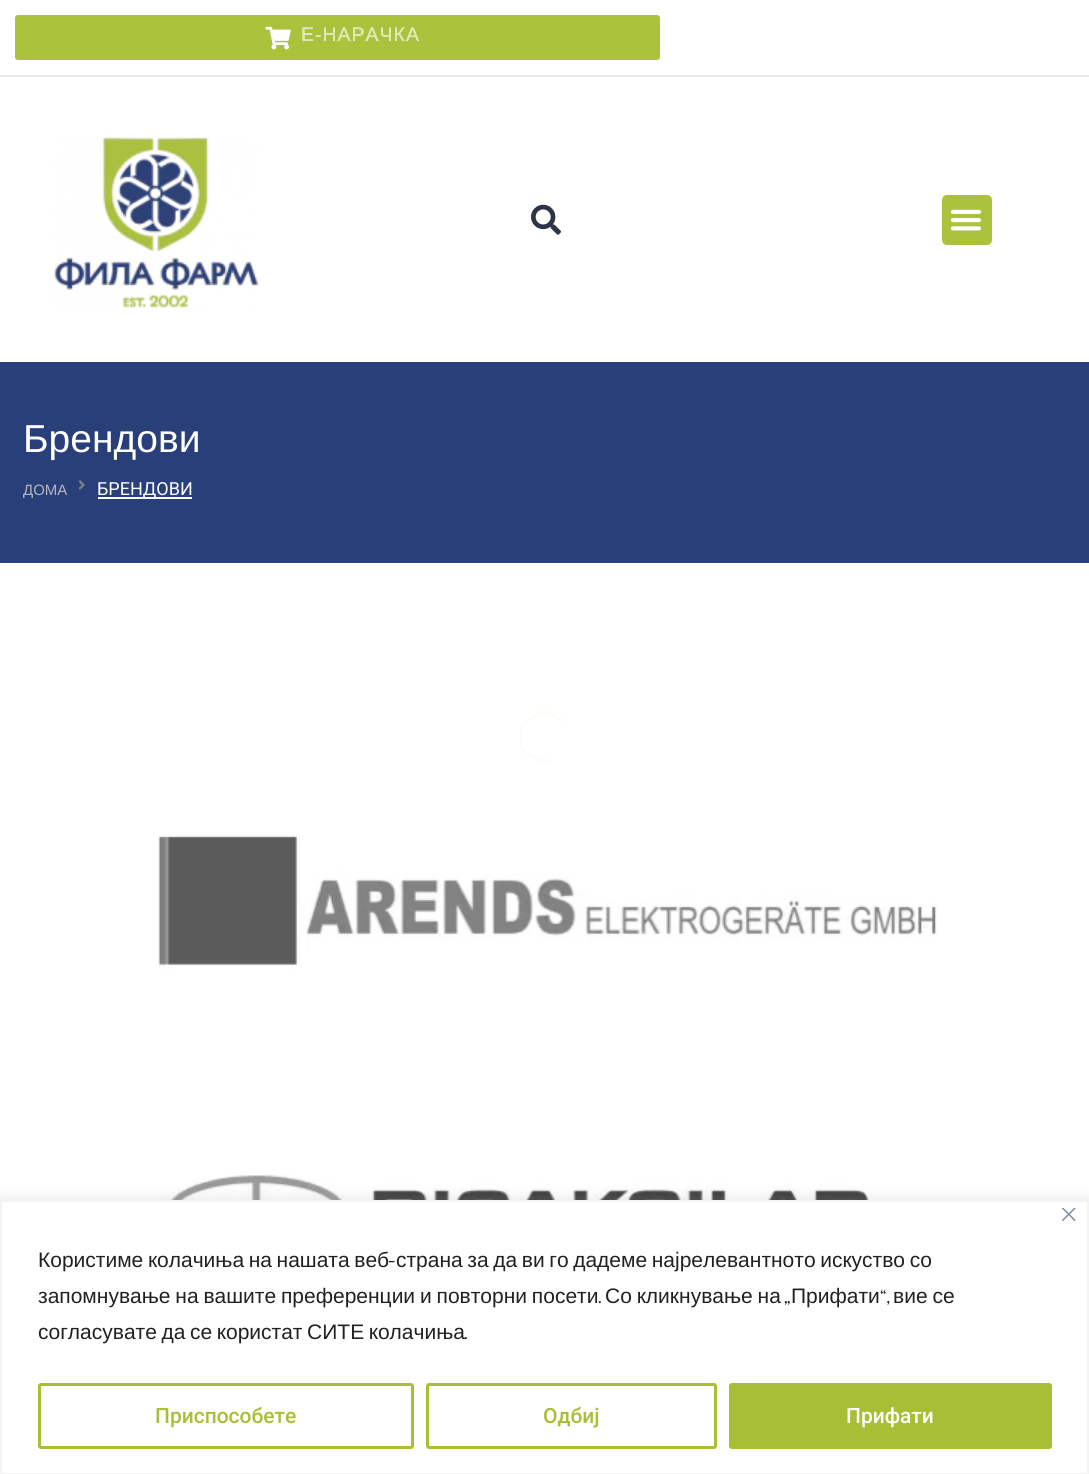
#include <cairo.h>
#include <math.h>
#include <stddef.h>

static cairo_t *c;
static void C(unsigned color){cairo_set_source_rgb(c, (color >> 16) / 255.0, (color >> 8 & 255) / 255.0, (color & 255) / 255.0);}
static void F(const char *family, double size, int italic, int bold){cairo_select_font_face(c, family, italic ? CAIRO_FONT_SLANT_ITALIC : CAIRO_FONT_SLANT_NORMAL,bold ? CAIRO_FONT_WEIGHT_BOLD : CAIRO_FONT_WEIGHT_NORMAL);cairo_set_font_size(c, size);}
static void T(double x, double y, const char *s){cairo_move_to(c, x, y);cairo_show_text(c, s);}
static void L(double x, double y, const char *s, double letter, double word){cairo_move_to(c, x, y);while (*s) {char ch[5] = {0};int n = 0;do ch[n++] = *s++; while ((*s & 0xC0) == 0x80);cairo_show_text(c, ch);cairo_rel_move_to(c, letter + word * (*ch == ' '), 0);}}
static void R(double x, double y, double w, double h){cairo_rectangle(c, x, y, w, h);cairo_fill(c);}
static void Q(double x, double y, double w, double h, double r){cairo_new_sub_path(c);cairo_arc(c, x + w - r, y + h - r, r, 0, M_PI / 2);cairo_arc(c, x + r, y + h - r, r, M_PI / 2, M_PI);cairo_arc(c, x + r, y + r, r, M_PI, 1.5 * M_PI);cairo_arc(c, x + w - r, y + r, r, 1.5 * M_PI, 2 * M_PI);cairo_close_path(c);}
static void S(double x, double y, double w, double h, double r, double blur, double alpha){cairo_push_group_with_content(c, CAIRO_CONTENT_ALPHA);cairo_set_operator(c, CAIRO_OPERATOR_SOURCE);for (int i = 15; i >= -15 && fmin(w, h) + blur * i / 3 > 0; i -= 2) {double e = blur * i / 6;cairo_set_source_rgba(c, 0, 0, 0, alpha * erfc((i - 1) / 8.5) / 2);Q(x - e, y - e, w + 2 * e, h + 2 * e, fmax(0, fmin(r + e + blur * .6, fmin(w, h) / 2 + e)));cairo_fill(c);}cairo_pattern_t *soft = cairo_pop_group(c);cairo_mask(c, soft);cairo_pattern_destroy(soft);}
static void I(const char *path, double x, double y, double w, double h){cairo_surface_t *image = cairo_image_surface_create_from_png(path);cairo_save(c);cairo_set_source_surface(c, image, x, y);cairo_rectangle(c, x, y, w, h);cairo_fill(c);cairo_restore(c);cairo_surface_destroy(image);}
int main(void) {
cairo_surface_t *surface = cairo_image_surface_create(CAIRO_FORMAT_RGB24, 1089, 1474);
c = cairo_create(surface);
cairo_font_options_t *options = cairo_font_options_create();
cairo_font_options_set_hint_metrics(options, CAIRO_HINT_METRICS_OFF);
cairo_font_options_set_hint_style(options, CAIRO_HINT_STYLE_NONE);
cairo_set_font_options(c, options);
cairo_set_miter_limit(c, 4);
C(0xffffff);
cairo_paint(c);
C(0xe4eaef);
R(0,75,1089,2);
C(0xabc23d);
Q(15,15,645,45,3);
cairo_fill(c);
I("1.png",265,26,26,24);
F("Liberation Sans",19.5,0,0);
C(0xffffff);
L(301,41,"Е-НАРАЧКА",1,0);
C(0xdde7b2);
L(301,41,"Е-НАРАЧКА",1,0);
I("2.png",54,137,205,171);
I("3.png",531,204,30,31);
C(0xabc23d);
Q(942,195,50,50,5);
cairo_fill(c);
I("4.png",950,209,32,22);
C(0x283f79);
R(0,362,1089,201);
F("Liberation Sans",39,0,0);
C(0xffffff);
T(23,452,"Брендови");
F("Liberation Sans",15,0,0);
C(0xb4b7ba);
T(23,495,"ДОМА");
I("5.png",78,480,7,10);
C(0xffffff);
R(98,497,94,2);
F("Roboto",18,0,0);
T(97,495,"БРЕНДОВИ");
I("6.png",158,835,779,134);
I("7.png",164,1175,705,25);
cairo_new_path(c);
cairo_move_to(c,563,721.5);
cairo_curve_to(c,559.5,719.5,549.5,712.5,545.5,712);
cairo_curve_to(c,541.5,711.5,538,714.5,535,716);
cairo_curve_to(c,521.5,724,521,721,521,737);
cairo_curve_to(c,521,752.5,521.5,750,535,757.5);
cairo_curve_to(c,542,761.5,544,763.5,550.5,759.5);
C(0xfcfdf8);
cairo_set_line_width(c,3);
cairo_set_line_join(c,CAIRO_LINE_JOIN_ROUND);
cairo_stroke(c);
C(0xacabab);
S(0,1199,1089,274,0,7.5,.3);
C(0xffffff);
cairo_rectangle(c,1,1201,1087,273);
cairo_fill_preserve(c);
C(0xf4f4f4);
cairo_set_line_width(c,2);
cairo_set_line_join(c,CAIRO_LINE_JOIN_MITER);
cairo_stroke(c);
I("8.png",1062,1208,14,13);
F("Liberation Sans",21,0,0);
C(0x212121);
L(38,1267,"Користиме колачиња на нашата веб",0,-1.25);
F("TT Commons",21,0,0);
T(388,1267,"-");
F("Liberation Sans",21,0,0);
L(396,1267,"страна за да ви го дадеме најрелевантното искуство со",0,-1.25);
L(38,1303,"запомнување на вашите преференции и повторни посети",0,-1);
F("TT Commons",21,0,0);
T(598,1303,".");
F("Liberation Sans",21,0,0);
L(605,1303,"Со кликнување на",0,-1);
F("TT Commons",21,0,0);
T(784,1303,"„");
F("Liberation Sans",21,0,0);
T(791,1303,"Прифати");
F("TT Commons",21,0,0);
T(880,1303,"“,");
F("Liberation Sans",21,0,0);
L(893,1303,"вие се",0,-1);
L(38,1339,"согласувате да се користат СИТЕ колачиња",0,-1.25);
F("TT Commons",21,0,0);
T(464,1339,".");
Q(39.5,1384.5,373,63,1.5);
C(0xa8bf35);
cairo_set_line_width(c,3);
cairo_stroke(c);
F("Roboto Medium",21,0,0);
T(155,1423,"Приспособете");
Q(427.5,1384.5,288,63,1.5);
cairo_stroke(c);
T(543,1423,"Одбиј");
Q(730.5,1384.5,320,63,1.5);
cairo_fill_preserve(c);
cairo_stroke(c);
C(0xffffff);
T(846,1423,"Прифати");
cairo_surface_write_to_png(surface, "o.png");
cairo_font_options_destroy(options);
cairo_destroy(c);
cairo_surface_destroy(surface);
return 0;
}
